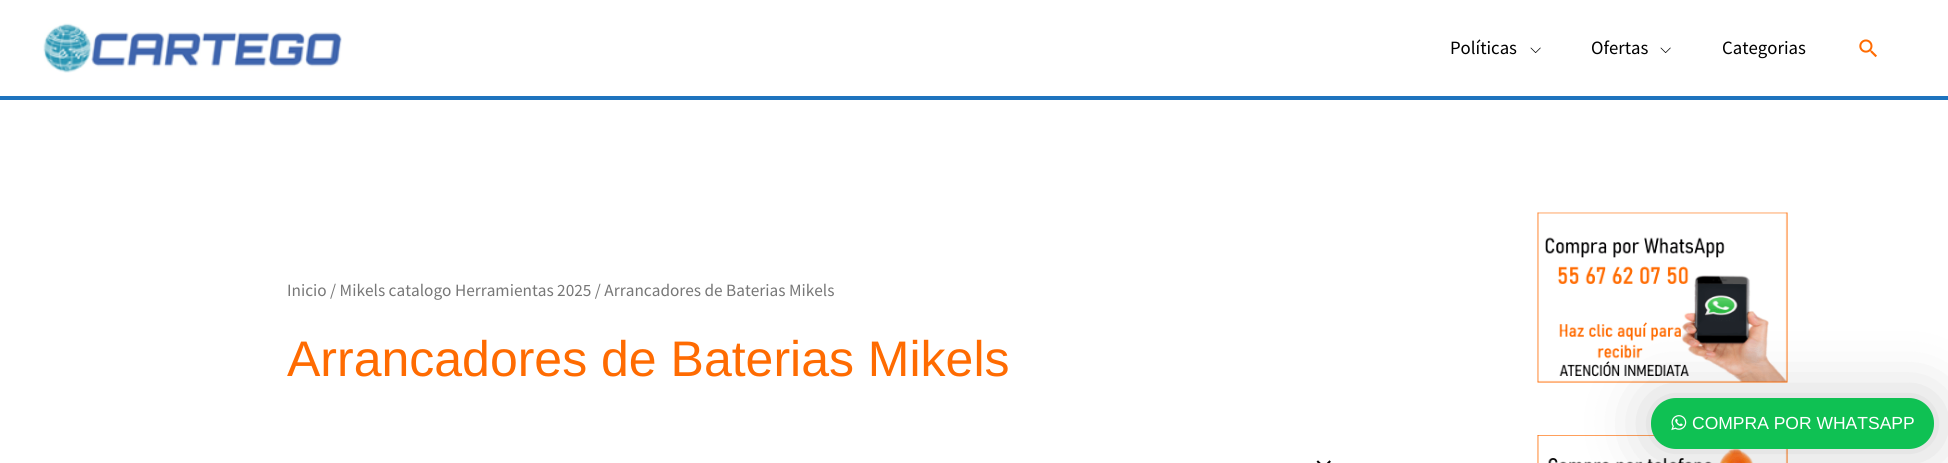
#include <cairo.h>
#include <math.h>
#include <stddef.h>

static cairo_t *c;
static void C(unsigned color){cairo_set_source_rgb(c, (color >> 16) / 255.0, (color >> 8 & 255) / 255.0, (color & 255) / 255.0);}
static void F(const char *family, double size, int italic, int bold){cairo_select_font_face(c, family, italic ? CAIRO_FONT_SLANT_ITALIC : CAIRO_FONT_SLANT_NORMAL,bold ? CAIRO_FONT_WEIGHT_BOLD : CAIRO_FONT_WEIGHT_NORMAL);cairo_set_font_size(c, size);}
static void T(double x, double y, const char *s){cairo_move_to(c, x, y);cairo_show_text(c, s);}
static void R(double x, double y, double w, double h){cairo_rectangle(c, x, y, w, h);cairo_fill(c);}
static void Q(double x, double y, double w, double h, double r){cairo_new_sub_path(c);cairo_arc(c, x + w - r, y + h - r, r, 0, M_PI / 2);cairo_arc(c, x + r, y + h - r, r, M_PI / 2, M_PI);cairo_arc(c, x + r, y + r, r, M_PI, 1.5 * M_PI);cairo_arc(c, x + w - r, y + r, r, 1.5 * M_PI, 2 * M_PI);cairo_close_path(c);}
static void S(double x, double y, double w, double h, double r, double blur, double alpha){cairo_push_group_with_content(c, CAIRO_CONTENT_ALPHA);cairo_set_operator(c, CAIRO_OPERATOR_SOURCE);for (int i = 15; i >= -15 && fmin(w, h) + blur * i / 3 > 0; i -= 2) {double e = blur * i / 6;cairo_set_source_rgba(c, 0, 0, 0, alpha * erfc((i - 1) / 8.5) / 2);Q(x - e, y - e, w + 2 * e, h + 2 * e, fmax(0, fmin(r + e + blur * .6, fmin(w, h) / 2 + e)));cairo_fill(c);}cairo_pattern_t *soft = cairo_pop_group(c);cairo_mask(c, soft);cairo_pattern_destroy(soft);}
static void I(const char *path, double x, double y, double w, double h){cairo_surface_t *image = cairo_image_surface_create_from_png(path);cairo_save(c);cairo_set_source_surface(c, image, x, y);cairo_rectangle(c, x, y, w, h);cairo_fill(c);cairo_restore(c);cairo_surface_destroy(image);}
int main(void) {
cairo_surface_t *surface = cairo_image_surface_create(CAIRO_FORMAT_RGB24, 1948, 463);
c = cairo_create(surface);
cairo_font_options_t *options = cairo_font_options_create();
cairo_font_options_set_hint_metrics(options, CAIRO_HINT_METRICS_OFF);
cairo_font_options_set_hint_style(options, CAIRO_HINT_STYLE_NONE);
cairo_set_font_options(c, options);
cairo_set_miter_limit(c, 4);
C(0xffffff);
cairo_paint(c);
C(0x1e73be);
R(0,96,1948,4);
I("1.png",43,23,299,50);
F("Source Sans Pro",18.75,0,0);
C(0x000000);
T(1450,54,"Políticas");
I("2.png",1530,47,11,6);
T(1591,54,"Ofertas");
I("2.png",1660,47,11,6);
T(1722,54,"Categorias");
I("3.png",1859,39,18,19);
F("Source Sans Pro",17.25,0,0);
C(0x777777);
T(287,296,"Inicio / Mikels catalogo Herramientas 2025 / Arrancadores de Baterias Mikels");
F("Liberation Sans",50,0,0);
C(0xff6b01);
T(287,376,"Arrancadores de Baterias Mikels");
I("4.png",1316,460,15,3);
I("5.png",1537,212,251,171);
I("6.png",1537,435,251,28);
C(0x000000);
S(1651,398,283,51,25,31,.2);
C(0x0fc153);
Q(1651,398,283,51,25);
cairo_fill(c);
I("7.png",1671,415,16,16);
F("Liberation Sans",17.5,0,0);
C(0xffffff);
T(1692,429,"COMPRA POR WHATSAPP");
cairo_surface_write_to_png(surface, "o.png");
cairo_font_options_destroy(options);
cairo_destroy(c);
cairo_surface_destroy(surface);
return 0;
}
